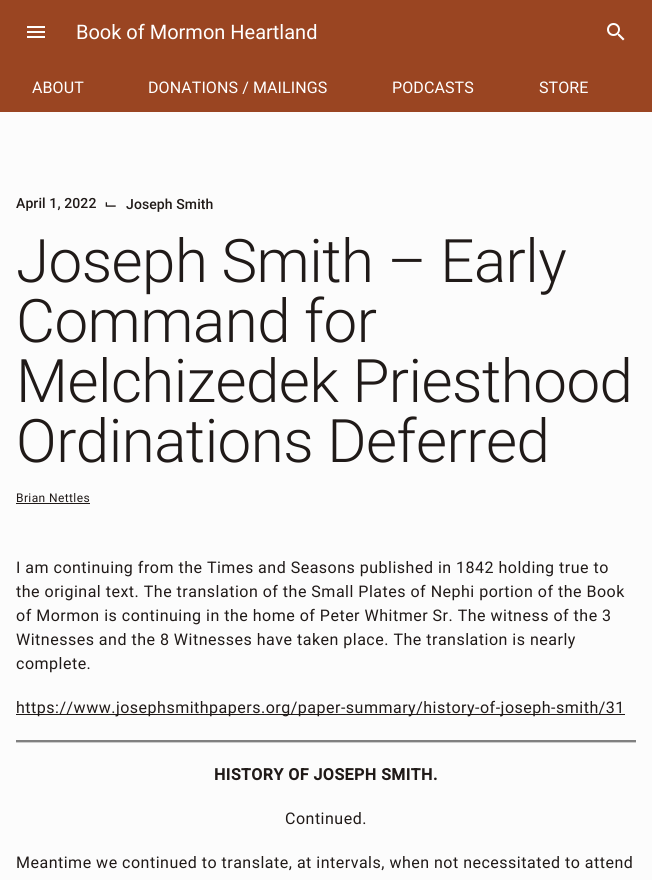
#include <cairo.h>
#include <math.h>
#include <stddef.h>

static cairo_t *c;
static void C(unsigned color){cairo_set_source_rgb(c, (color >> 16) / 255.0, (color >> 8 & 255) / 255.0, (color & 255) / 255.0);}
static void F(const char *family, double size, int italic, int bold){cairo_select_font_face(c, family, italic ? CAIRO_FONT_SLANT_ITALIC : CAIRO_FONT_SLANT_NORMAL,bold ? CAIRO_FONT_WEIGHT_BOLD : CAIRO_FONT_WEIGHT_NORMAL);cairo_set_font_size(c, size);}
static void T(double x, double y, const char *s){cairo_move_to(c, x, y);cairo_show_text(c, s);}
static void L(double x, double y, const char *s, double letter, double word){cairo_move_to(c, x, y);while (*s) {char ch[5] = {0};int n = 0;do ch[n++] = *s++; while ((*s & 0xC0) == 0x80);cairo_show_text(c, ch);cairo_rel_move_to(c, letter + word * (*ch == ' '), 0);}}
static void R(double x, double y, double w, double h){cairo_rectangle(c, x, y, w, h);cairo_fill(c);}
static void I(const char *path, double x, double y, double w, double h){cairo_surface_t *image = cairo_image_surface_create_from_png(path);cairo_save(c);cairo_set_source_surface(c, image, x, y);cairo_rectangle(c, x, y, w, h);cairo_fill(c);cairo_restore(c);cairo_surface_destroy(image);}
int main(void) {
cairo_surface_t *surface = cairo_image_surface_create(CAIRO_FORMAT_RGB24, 652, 880);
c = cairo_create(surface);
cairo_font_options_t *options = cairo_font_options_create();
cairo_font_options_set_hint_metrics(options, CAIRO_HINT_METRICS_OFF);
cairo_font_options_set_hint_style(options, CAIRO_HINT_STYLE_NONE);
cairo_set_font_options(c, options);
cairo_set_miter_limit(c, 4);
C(0xfcfcfc);
cairo_paint(c);
C(0x9a4522);
R(0,0,652,112);
I("1.png",27,26,18,12);
F("Roboto",20,0,0);
C(0xffffff);
T(76,39,"Book of Mormon Heartland");
I("2.png",607,23,18,18);
F("Roboto",16,0,0);
L(32,93,"ABOUT",.1,0);
L(148,93,"DONATIONS / MAILINGS",.1,0);
L(392,93,"PODCASTS",.1,0);
L(539,93,"STORE",.1,0);
F("Roboto Medium",14,0,0);
C(0x201a18);
L(16,208,"April 1, 2022",.1,0);
F("DejaVu Sans",16,0,0);
T(104,209,"⌙");
F("Roboto Medium",14,0,0);
L(126,209,"Joseph Smith",.1,0);
F("Roboto Light",60,0,0);
L(16,282,"Joseph Smith – Early",-.5,0);
L(16,342,"Command for",-.5,0);
L(16,402,"Melchizedek Priesthood",-.5,0);
L(16,462,"Ordinations Deferred",-.5,0);
F("Roboto",12,0,0);
L(16,502,"Brian Nettles",.4,0);
R(16,503,74,1);
F("Roboto",16,0,0);
L(16,573,"I am continuing from the Times and Seasons published in 1842 holding true to",.5,0);
L(16,597,"the original text. The translation of the Small Plates of Nephi portion of the Book",.5,0);
L(16,621,"of Mormon is continuing in the home of Peter Whitmer Sr. The witness of the 3",.5,0);
L(16,645,"Witnesses and the 8 Witnesses have taken place. The translation is nearly",.5,0);
L(16,669,"complete.",.5,0);
R(16,714,609,1);
L(16,713,"https://www.josephsmithpapers.org/paper-summary/history-of-joseph-smith/31",.5,0);
C(0xcccccc);
R(16,742,620,1);
C(0x808080);
R(16,740,620,2);
F("Roboto",16,0,1);
C(0x201a18);
L(214,780,"HISTORY OF JOSEPH SMITH.",.5,0);
F("Roboto",16,0,0);
L(285,824,"Continued.",.5,0);
L(16,868,"Meantime we continued to translate, at intervals, when not necessitated to attend",.5,0);
cairo_surface_write_to_png(surface, "o.png");
cairo_font_options_destroy(options);
cairo_destroy(c);
cairo_surface_destroy(surface);
return 0;
}
